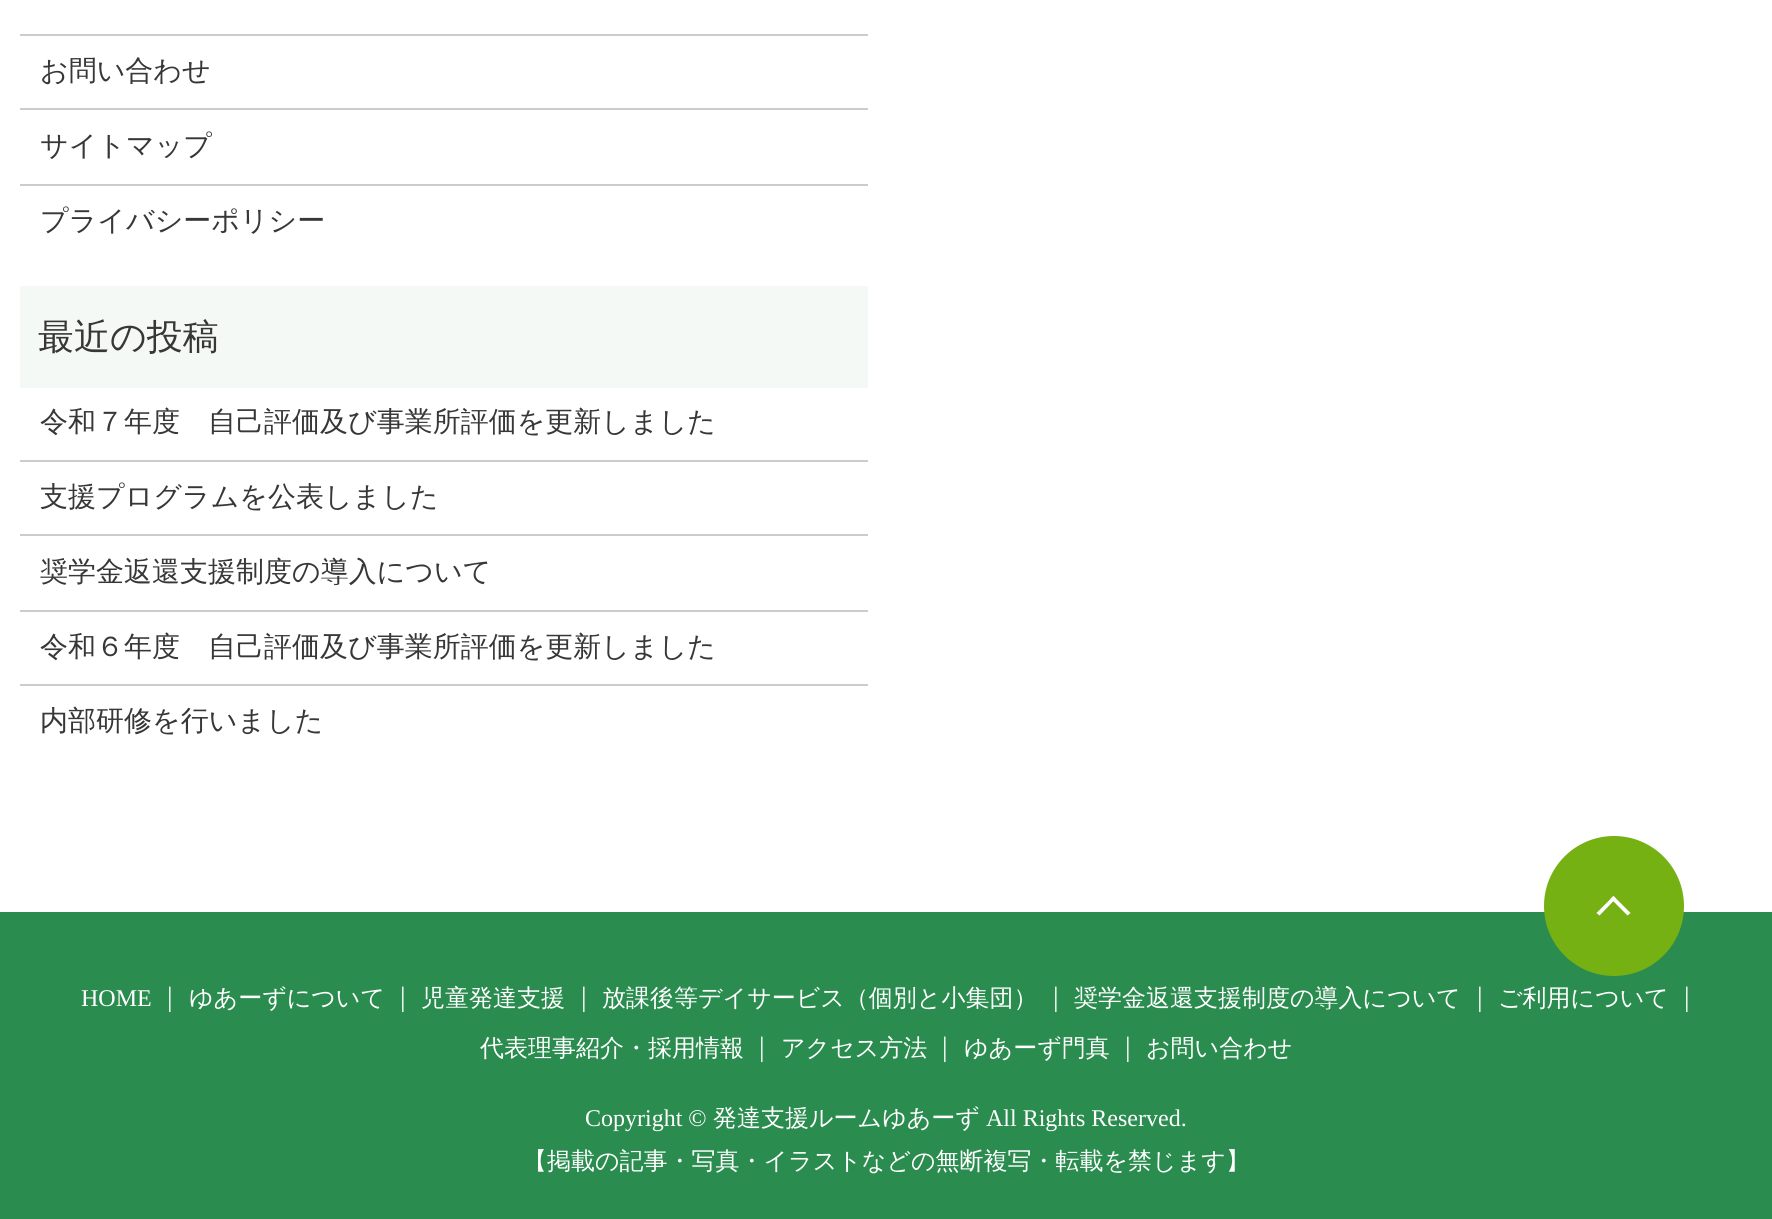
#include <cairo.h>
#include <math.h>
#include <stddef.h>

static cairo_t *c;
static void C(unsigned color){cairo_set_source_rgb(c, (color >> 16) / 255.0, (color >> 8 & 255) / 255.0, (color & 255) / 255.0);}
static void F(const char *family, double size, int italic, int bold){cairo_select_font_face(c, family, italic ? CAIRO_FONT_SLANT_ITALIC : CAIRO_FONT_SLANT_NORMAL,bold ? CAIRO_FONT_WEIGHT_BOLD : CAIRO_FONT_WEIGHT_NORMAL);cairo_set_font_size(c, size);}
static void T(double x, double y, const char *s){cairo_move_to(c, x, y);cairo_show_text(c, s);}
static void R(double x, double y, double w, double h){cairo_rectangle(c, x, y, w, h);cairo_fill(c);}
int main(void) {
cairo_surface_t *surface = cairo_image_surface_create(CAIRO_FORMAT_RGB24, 1772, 1219);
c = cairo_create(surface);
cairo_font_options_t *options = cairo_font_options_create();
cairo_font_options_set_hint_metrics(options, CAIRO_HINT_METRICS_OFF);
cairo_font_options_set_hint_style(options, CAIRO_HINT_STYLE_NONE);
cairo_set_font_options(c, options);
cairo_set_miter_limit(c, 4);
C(0xffffff);
cairo_paint(c);
C(0xcccccc);
R(20,34,848,2);
R(20,108,848,2);
F("WenQuanYi Zen Hei Medium",28,0,0);
C(0x373737);
T(40,80,"お問い合わせ");
C(0xcccccc);
R(20,184,848,2);
C(0x373737);
T(40,155,"サイトマップ");
T(40,230,"プライバシーポリシー");
C(0xf5f9f6);
R(20,286,848,102);
F("WenQuanYi Zen Hei Medium",36,0,0);
C(0x373737);
T(38,349,"最近の投稿");
C(0xcccccc);
R(20,460,848,2);
F("WenQuanYi Zen Hei Medium",28,0,0);
C(0x373737);
T(40,431,"令和７年度　自己評価及び事業所評価を更新しました");
C(0xcccccc);
R(20,534,848,2);
C(0x373737);
T(40,506,"支援プログラムを公表しました");
C(0xcccccc);
R(20,610,848,2);
C(0x373737);
T(40,581,"奨学金返還支援制度の導入について");
C(0xcccccc);
R(20,684,848,2);
C(0x373737);
T(40,656,"令和６年度　自己評価及び事業所評価を更新しました");
T(40,730,"内部研修を行いました");
C(0x2a8c4e);
R(0,912,1772,307);
C(0x76b114);
cairo_new_path(c);
cairo_arc(c,1614,906,70,0,2 * M_PI);
cairo_fill(c);
C(0xffffff);
cairo_new_path(c);
cairo_move_to(c,1613.5,896);
cairo_line_to(c,1630.5,913);
cairo_line_to(c,1627.5,915.5);
cairo_line_to(c,1610.5,898.5);
cairo_close_path(c);
cairo_fill(c);
cairo_new_path(c);
cairo_move_to(c,1613.5,896);
cairo_line_to(c,1616,898.5);
cairo_line_to(c,1599.5,915.5);
cairo_line_to(c,1596.5,913);
cairo_close_path(c);
cairo_fill(c);
F("Liberation Serif",28,0,0);
T(167,1006,"|");
F("WenQuanYi Zen Hei Medium",24,0,0);
T(189,1006,"ゆあーずについて");
F("Liberation Serif",28,0,0);
T(400,1006,"|");
F("WenQuanYi Zen Hei Medium",24,0,0);
T(421,1006,"児童発達支援");
F("Liberation Serif",28,0,0);
T(1053,1006,"|");
F("WenQuanYi Zen Hei Medium",24,0,0);
T(1074,1006,"奨学金返還支援制度の導入について");
F("Liberation Serif",28,0,0);
T(1684,1006,"|");
F("WenQuanYi Zen Hei Medium",24,0,0);
T(480,1056,"代表理事紹介・採用情報");
F("Liberation Serif",24,0,0);
T(81,1006,"HOME");
F("Liberation Serif",28,0,0);
T(581,1006,"|");
F("WenQuanYi Zen Hei Medium",24,0,0);
T(602,1006,"放課後等デイサービス（個別と小集団）");
F("Liberation Serif",28,0,0);
T(1477,1006,"|");
F("WenQuanYi Zen Hei Medium",24,0,0);
T(1498,1006,"ご利用について");
F("Liberation Serif",28,0,0);
T(759,1056,"|");
F("WenQuanYi Zen Hei Medium",24,0,0);
T(781,1056,"アクセス方法");
F("Liberation Serif",28,0,0);
T(942,1056,"|");
F("WenQuanYi Zen Hei Medium",24,0,0);
T(964,1056,"ゆあーず門真");
F("Liberation Serif",28,0,0);
T(1125,1056,"|");
F("WenQuanYi Zen Hei Medium",24,0,0);
T(1146,1056,"お問い合わせ");
F("Liberation Serif",24,0,0);
T(585,1126,"Copyright ©");
F("WenQuanYi Zen Hei Medium",24,0,0);
T(713,1126,"発達支援ルームゆあーず");
F("Liberation Serif",24,0,0);
T(986,1126,"All Rights Reserved.");
F("WenQuanYi Zen Hei Medium",24,0,0);
T(523,1169,"【掲載の記事・写真・イラストなどの無断複写・転載を禁じます】");
cairo_surface_write_to_png(surface, "o.png");
cairo_font_options_destroy(options);
cairo_destroy(c);
cairo_surface_destroy(surface);
return 0;
}
